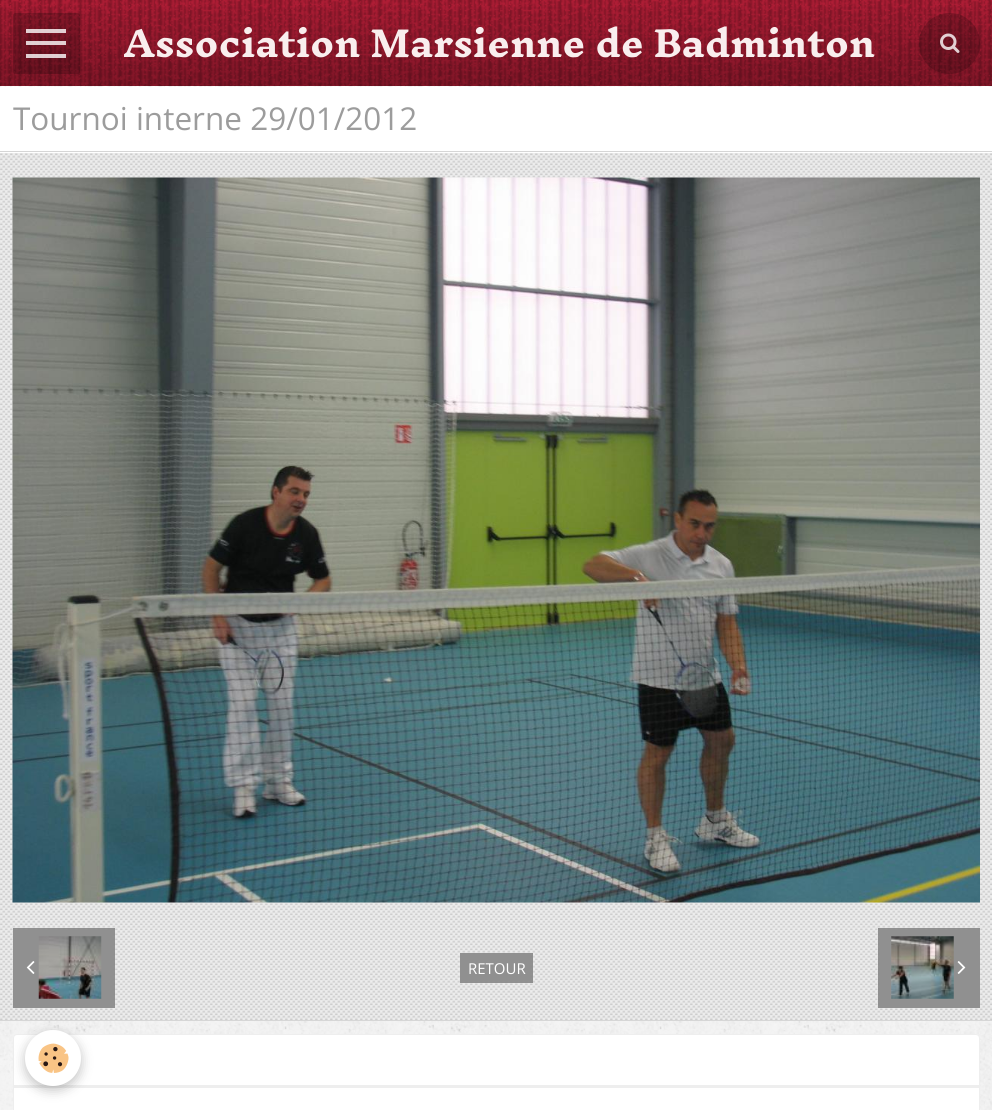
#include <cairo.h>
#include <math.h>
#include <stddef.h>

static cairo_t *c;
static void C(unsigned color){cairo_set_source_rgb(c, (color >> 16) / 255.0, (color >> 8 & 255) / 255.0, (color & 255) / 255.0);}
static void F(const char *family, double size, int italic, int bold){cairo_select_font_face(c, family, italic ? CAIRO_FONT_SLANT_ITALIC : CAIRO_FONT_SLANT_NORMAL,bold ? CAIRO_FONT_WEIGHT_BOLD : CAIRO_FONT_WEIGHT_NORMAL);cairo_set_font_size(c, size);}
static void T(double x, double y, const char *s){cairo_move_to(c, x, y);cairo_show_text(c, s);}
static void R(double x, double y, double w, double h){cairo_rectangle(c, x, y, w, h);cairo_fill(c);}
static void Q(double x, double y, double w, double h, double r){cairo_new_sub_path(c);cairo_arc(c, x + w - r, y + h - r, r, 0, M_PI / 2);cairo_arc(c, x + r, y + h - r, r, M_PI / 2, M_PI);cairo_arc(c, x + r, y + r, r, M_PI, 1.5 * M_PI);cairo_arc(c, x + w - r, y + r, r, 1.5 * M_PI, 2 * M_PI);cairo_close_path(c);}
static void S(double x, double y, double w, double h, double r, double blur, double alpha){cairo_push_group_with_content(c, CAIRO_CONTENT_ALPHA);cairo_set_operator(c, CAIRO_OPERATOR_SOURCE);for (int i = 15; i >= -15 && fmin(w, h) + blur * i / 3 > 0; i -= 2) {double e = blur * i / 6;cairo_set_source_rgba(c, 0, 0, 0, alpha * erfc((i - 1) / 8.5) / 2);Q(x - e, y - e, w + 2 * e, h + 2 * e, fmax(0, fmin(r + e + blur * .6, fmin(w, h) / 2 + e)));cairo_fill(c);}cairo_pattern_t *soft = cairo_pop_group(c);cairo_mask(c, soft);cairo_pattern_destroy(soft);}
static void I(const char *path, double x, double y, double w, double h){cairo_surface_t *image = cairo_image_surface_create_from_png(path);cairo_save(c);cairo_set_source_surface(c, image, x, y);cairo_rectangle(c, x, y, w, h);cairo_fill(c);cairo_restore(c);cairo_surface_destroy(image);}
int main(void) {
cairo_surface_t *surface = cairo_image_surface_create(CAIRO_FORMAT_RGB24, 992, 1110);
c = cairo_create(surface);
cairo_font_options_t *options = cairo_font_options_create();
cairo_font_options_set_hint_metrics(options, CAIRO_HINT_METRICS_OFF);
cairo_font_options_set_hint_style(options, CAIRO_HINT_STYLE_NONE);
cairo_set_font_options(c, options);
cairo_set_miter_limit(c, 4);
cairo_pattern_t *gradient;
C(0xeeeeee);
cairo_paint(c);
I("1.png",0,153,992,867);
C(0xaf1d35);
R(0,0,992,86);
C(0xffffff);
R(0,86,992,67);
I("2.png",0,0,992,87);
gradient = cairo_pattern_create_linear(496,86,496,0);
cairo_pattern_add_color_stop_rgba(gradient,0,0,0,0,.25);
cairo_pattern_add_color_stop_rgba(gradient,1,0,0,0,0);
cairo_set_source(c,gradient);
cairo_pattern_destroy(gradient);
R(0,7,992,79);
cairo_set_source_rgba(c,0,0,0,0.2);
Q(13,13,67,61,2.5);
cairo_fill(c);
cairo_set_source_rgba(c,1,1,1,0.8);
R(26,41,40,4);
R(26,29,40,4);
R(26,54,40,4);
cairo_save(c);
cairo_rectangle(c,124,23,751,41);
cairo_clip(c);
F("Inknut Antiqua",35,0,1);
C(0xf9eeee);
T(123,57,"Association Marsienne de Badminton");
cairo_restore(c);
cairo_set_source_rgba(c,0,0,0,0.2);
cairo_new_path(c);
cairo_arc(c,949.5,43.5,30.5,0,2 * M_PI);
cairo_fill(c);
I("3.png",940,33,20,20);
C(0xd6d6d6);
R(0,151,992,1);
F("Open Sans",31.5,0,0);
C(0x9c9c9c);
T(13,130,"Tournoi interne 29/01/2012");
I("4.png",12,177,968,726);
C(0x909090);
R(13,928,102,80);
I("5.png",26,961,9,13);
I("6.png",38,936,64,63);
R(460,953,73,30);
F("Open Sans",15,0,0);
C(0xffffff);
T(468,974,"RETOUR");
C(0x909090);
R(878,928,102,80);
I("7.png",891,936,63,63);
I("8.png",957,961,9,13);
C(0xf8f8f8);
R(0,1021,992,89);
I("9.png",0,1021,992,89);
C(0xd6d6d6);
R(0,1020,992,1);
C(0xffffff);
Q(13.5,1034.5,966,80,3.5);
cairo_fill_preserve(c);
C(0xeeeeee);
cairo_set_line_width(c,1);
cairo_stroke(c);
R(14,1085,965,3);
C(0x000000);
S(25,1034,56,56,28,6,.24);
C(0xffffff);
cairo_arc(c,53,1058,28,0,2 * M_PI);
cairo_fill(c);
I("10.png",38,1043,31,30);
cairo_surface_write_to_png(surface, "o.png");
cairo_font_options_destroy(options);
cairo_destroy(c);
cairo_surface_destroy(surface);
return 0;
}
